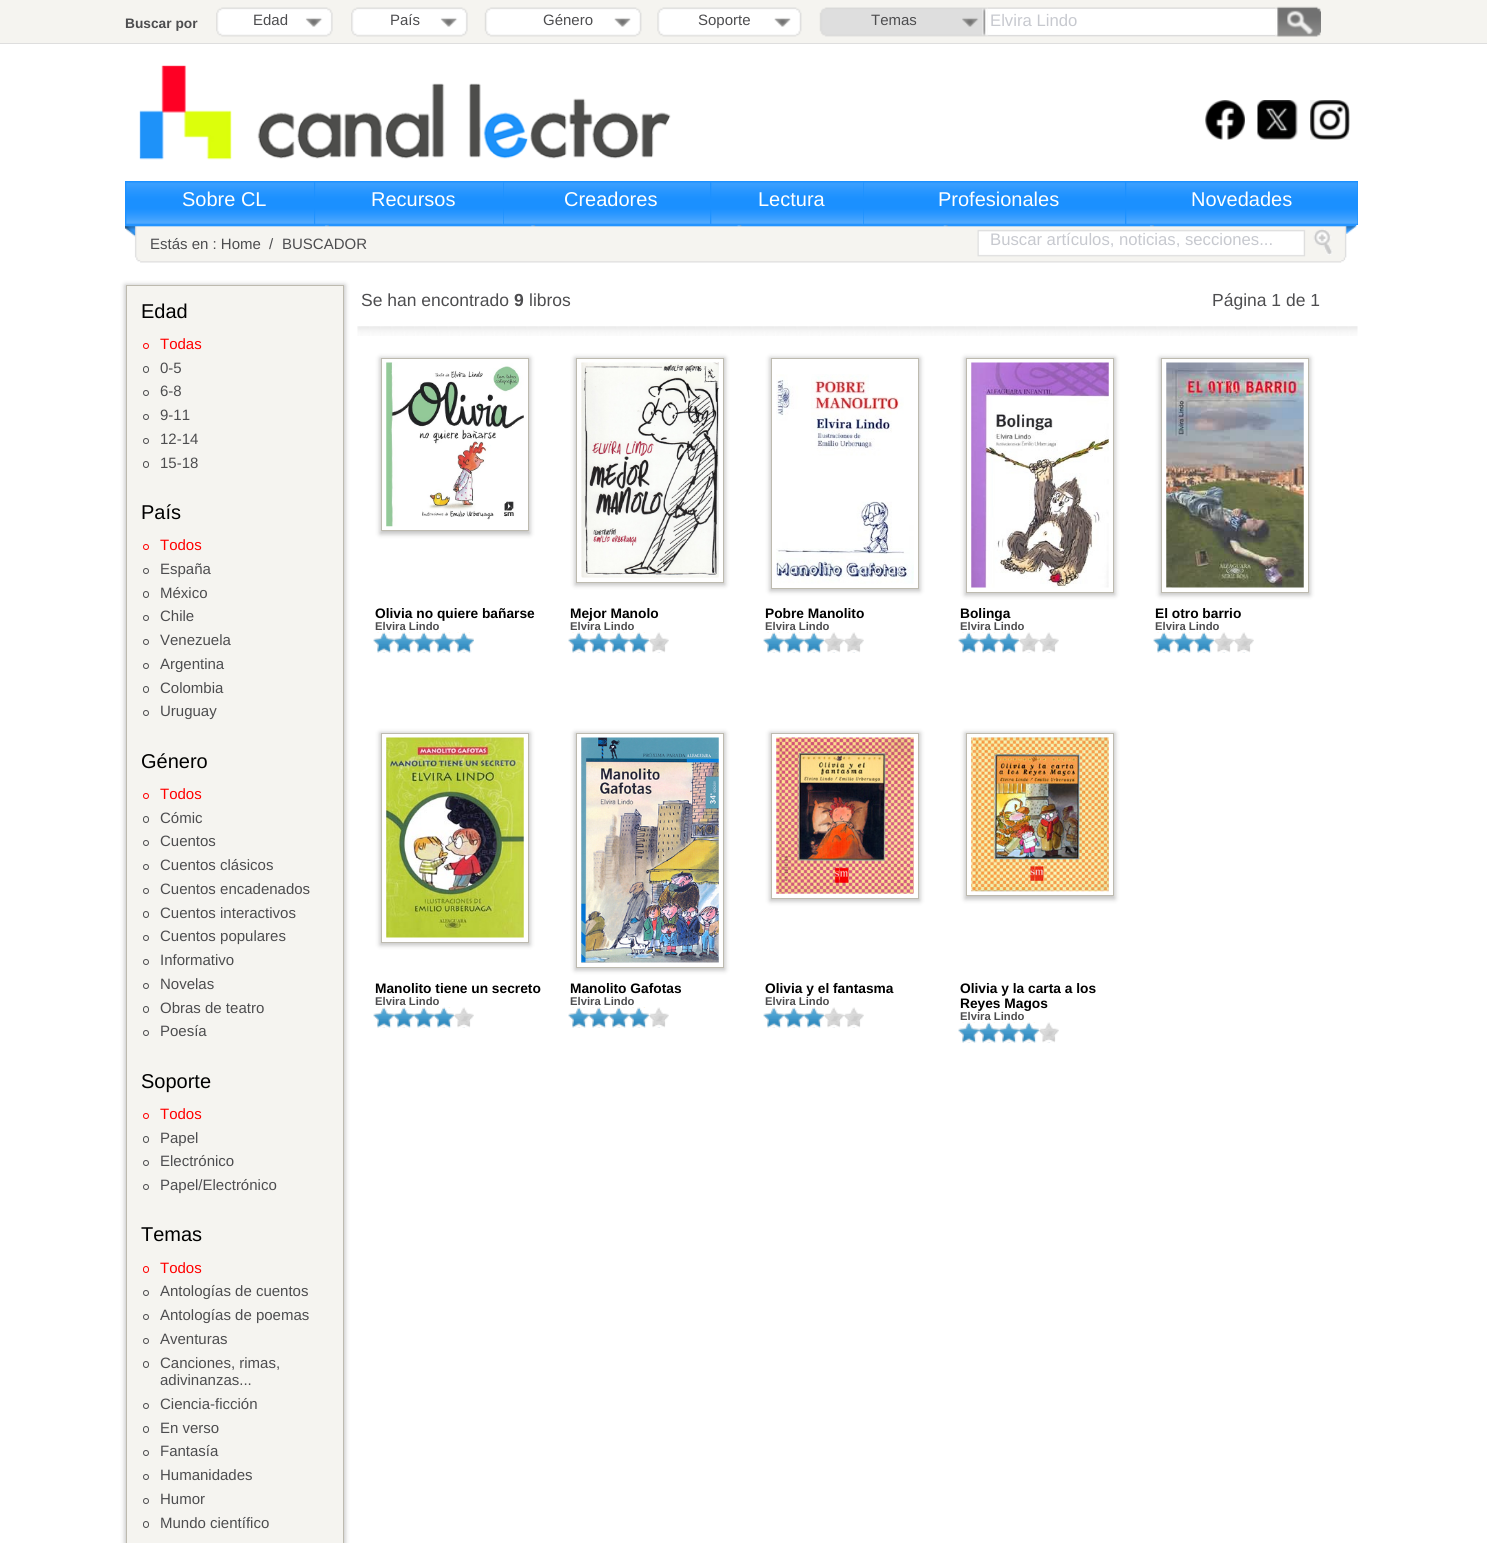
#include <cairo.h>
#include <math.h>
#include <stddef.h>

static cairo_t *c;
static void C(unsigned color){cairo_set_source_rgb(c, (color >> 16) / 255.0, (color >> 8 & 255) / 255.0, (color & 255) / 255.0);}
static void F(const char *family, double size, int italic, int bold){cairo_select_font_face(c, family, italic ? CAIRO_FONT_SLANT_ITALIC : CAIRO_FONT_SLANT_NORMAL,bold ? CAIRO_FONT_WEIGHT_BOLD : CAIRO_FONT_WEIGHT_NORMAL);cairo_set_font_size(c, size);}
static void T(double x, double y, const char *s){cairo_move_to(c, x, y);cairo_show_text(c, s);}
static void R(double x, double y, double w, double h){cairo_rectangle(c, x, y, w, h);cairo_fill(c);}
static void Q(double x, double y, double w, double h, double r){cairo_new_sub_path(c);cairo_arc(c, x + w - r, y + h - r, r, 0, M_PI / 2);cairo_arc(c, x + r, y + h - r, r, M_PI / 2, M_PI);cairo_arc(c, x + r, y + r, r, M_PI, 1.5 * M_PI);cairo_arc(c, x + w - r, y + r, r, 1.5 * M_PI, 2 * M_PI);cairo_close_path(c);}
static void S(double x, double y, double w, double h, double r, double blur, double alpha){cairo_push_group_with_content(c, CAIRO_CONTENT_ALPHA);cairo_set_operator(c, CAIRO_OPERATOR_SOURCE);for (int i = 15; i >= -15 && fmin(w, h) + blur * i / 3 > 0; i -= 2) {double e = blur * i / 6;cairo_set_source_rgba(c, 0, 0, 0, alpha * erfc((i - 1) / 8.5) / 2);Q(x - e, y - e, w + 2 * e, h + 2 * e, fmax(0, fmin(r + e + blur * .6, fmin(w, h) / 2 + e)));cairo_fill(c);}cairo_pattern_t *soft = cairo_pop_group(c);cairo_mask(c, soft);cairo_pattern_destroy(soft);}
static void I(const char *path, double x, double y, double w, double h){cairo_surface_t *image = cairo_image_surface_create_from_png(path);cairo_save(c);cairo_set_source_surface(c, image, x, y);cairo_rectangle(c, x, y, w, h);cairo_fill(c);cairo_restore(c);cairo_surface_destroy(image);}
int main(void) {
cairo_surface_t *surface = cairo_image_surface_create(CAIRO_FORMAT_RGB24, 1487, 1543);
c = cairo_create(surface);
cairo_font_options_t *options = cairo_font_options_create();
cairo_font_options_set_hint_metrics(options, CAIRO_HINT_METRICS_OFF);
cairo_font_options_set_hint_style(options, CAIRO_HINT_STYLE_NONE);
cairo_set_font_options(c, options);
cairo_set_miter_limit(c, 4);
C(0xffffff);
cairo_paint(c);
C(0xf5f4f0);
R(0,0,1487,43);
C(0xdedede);
R(0,43,1487,1);
F("Liberation Sans",13.75,0,1);
C(0x4d4d4f);
T(125,28,"Buscar por");
I("1.png",216,7,117,30);
F("Liberation Sans",15,0,0);
T(253,25,"Edad");
I("1.png",351,7,117,30);
T(390,25,"País");
I("2.png",484,7,158,30);
T(543,25,"Género");
I("3.png",657,7,145,30);
T(698,25,"Soporte");
I("4.png",819,7,169,30);
T(871,25,"Temas");
I("5.png",987,7,288,30);
F("Liberation Sans",16.7,0,0);
C(0xc7c9cf);
T(990,26,"Elvira Lindo");
I("6.png",1275,6,46,31);
I("7.png",139,65,532,95);
I("8.png",1205,100,40,40);
I("9.png",1257,100,41,40);
I("10.png",1310,100,40,40);
C(0x1b90ff);
R(125,181,1233,44);
I("11.png",125,182,189,43);
F("Liberation Sans",20,0,0);
C(0xffffff);
T(182,206,"Sobre CL");
I("12.png",314,182,189,43);
T(371,206,"Recursos");
I("13.png",502,182,208,43);
T(564,206,"Creadores");
I("14.png",710,182,153,43);
T(758,206,"Lectura");
I("15.png",862,182,263,43);
T(938,206,"Profesionales");
I("16.png",1125,182,233,43);
T(1191,206,"Novedades");
I("17.png",125,225,1232,38);
F("Liberation Sans",15,0,0);
C(0x4d4d4f);
T(150,249,"Estás en : Home");
T(269,249,"/");
T(282,249,"BUSCADOR");
F("Liberation Sans",16.7,0,0);
C(0xc7c9cf);
T(990,245,"Buscar artículos, noticias, secciones...");
C(0x000000);
S(125,285,220,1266,0,2.5,.25);
C(0xf5f4f0);
cairo_rectangle(c,126.5,285.5,217,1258);
cairo_fill_preserve(c);
C(0xbdbaaf);
cairo_set_line_width(c,1);
cairo_stroke(c);
F("Liberation Sans",20,0,0);
C(0x000000);
T(141,318,"Edad");
cairo_new_path(c);
cairo_arc(c,146,346,2.5,0,2 * M_PI);
C(0xff0000);
cairo_stroke(c);
F("Liberation Sans",15,0,0);
T(160,349,"Todas");
Q(143.5,366.5,5,6,2.5);
C(0x4d4d4f);
cairo_stroke(c);
T(160,373,"0-5");
cairo_new_path(c);
cairo_arc(c,146,393,2.5,0,2 * M_PI);
cairo_stroke(c);
T(160,396,"6-8");
cairo_new_path(c);
cairo_arc(c,146,417,2.5,0,2 * M_PI);
cairo_stroke(c);
T(160,420,"9-11");
cairo_new_path(c);
cairo_arc(c,146,441,2.5,0,2 * M_PI);
cairo_stroke(c);
T(160,444,"12-14");
Q(143.5,461.5,5,6,2.5);
cairo_stroke(c);
T(160,468,"15-18");
F("Liberation Sans",20,0,0);
C(0x000000);
T(141,519,"País");
cairo_new_path(c);
cairo_arc(c,146,547,2.5,0,2 * M_PI);
C(0xff0000);
cairo_stroke(c);
F("Liberation Sans",15,0,0);
T(160,550,"Todos");
cairo_new_path(c);
cairo_arc(c,146,571,2.5,0,2 * M_PI);
C(0x4d4d4f);
cairo_stroke(c);
T(160,574,"España");
Q(143.5,591.5,5,6,2.5);
cairo_stroke(c);
T(160,598,"México");
cairo_new_path(c);
cairo_arc(c,146,618,2.5,0,2 * M_PI);
cairo_stroke(c);
T(160,621,"Chile");
cairo_new_path(c);
cairo_arc(c,146,642,2.5,0,2 * M_PI);
cairo_stroke(c);
T(160,645,"Venezuela");
cairo_new_path(c);
cairo_arc(c,146,666,2.5,0,2 * M_PI);
cairo_stroke(c);
T(160,669,"Argentina");
Q(143.5,686.5,5,6,2.5);
cairo_stroke(c);
T(160,693,"Colombia");
cairo_new_path(c);
cairo_arc(c,146,713,2.5,0,2 * M_PI);
cairo_stroke(c);
T(160,716,"Uruguay");
F("Liberation Sans",20,0,0);
C(0x000000);
T(141,768,"Género");
cairo_new_path(c);
cairo_arc(c,146,796,2.5,0,2 * M_PI);
C(0xff0000);
cairo_stroke(c);
F("Liberation Sans",15,0,0);
T(160,799,"Todos");
Q(143.5,816.5,5,6,2.5);
C(0x4d4d4f);
cairo_stroke(c);
T(160,823,"Cómic");
cairo_new_path(c);
cairo_arc(c,146,843,2.5,0,2 * M_PI);
cairo_stroke(c);
T(160,846,"Cuentos");
cairo_new_path(c);
cairo_arc(c,146,867,2.5,0,2 * M_PI);
cairo_stroke(c);
T(160,870,"Cuentos clásicos");
cairo_new_path(c);
cairo_arc(c,146,891,2.5,0,2 * M_PI);
cairo_stroke(c);
T(160,894,"Cuentos encadenados");
Q(143.5,911.5,5,6,2.5);
cairo_stroke(c);
T(160,918,"Cuentos interactivos");
cairo_new_path(c);
cairo_arc(c,146,938,2.5,0,2 * M_PI);
cairo_stroke(c);
T(160,941,"Cuentos populares");
cairo_new_path(c);
cairo_arc(c,146,962,2.5,0,2 * M_PI);
cairo_stroke(c);
T(160,965,"Informativo");
cairo_new_path(c);
cairo_arc(c,146,986,2.5,0,2 * M_PI);
cairo_stroke(c);
T(160,989,"Novelas");
Q(143.5,1006.5,5,6,2.5);
cairo_stroke(c);
T(160,1013,"Obras de teatro");
cairo_new_path(c);
cairo_arc(c,146,1033,2.5,0,2 * M_PI);
cairo_stroke(c);
T(160,1036,"Poesía");
F("Liberation Sans",20,0,0);
C(0x000000);
T(141,1088,"Soporte");
cairo_new_path(c);
cairo_arc(c,146,1116,2.5,0,2 * M_PI);
C(0xff0000);
cairo_stroke(c);
F("Liberation Sans",15,0,0);
T(160,1119,"Todos");
Q(143.5,1136.5,5,6,2.5);
C(0x4d4d4f);
cairo_stroke(c);
T(160,1143,"Papel");
cairo_new_path(c);
cairo_arc(c,146,1163,2.5,0,2 * M_PI);
cairo_stroke(c);
T(160,1166,"Electrónico");
cairo_new_path(c);
cairo_arc(c,146,1187,2.5,0,2 * M_PI);
cairo_stroke(c);
T(160,1190,"Papel/Electrónico");
F("Liberation Sans",20,0,0);
C(0x000000);
T(141,1241,"Temas");
Q(143.5,1266.5,5,6,2.5);
C(0xff0000);
cairo_stroke(c);
F("Liberation Sans",15,0,0);
T(160,1273,"Todos");
cairo_new_path(c);
cairo_arc(c,146,1293,2.5,0,2 * M_PI);
C(0x4d4d4f);
cairo_stroke(c);
T(160,1296,"Antologías de cuentos");
cairo_new_path(c);
cairo_arc(c,146,1317,2.5,0,2 * M_PI);
cairo_stroke(c);
T(160,1320,"Antologías de poemas");
cairo_new_path(c);
cairo_arc(c,146,1341,2.5,0,2 * M_PI);
cairo_stroke(c);
T(160,1344,"Aventuras");
Q(143.5,1361.5,5,6,2.5);
cairo_stroke(c);
T(160,1368,"Canciones, rimas,");
T(160,1385,"adivinanzas...");
cairo_new_path(c);
cairo_arc(c,146,1406,2.5,0,2 * M_PI);
cairo_stroke(c);
T(160,1409,"Ciencia-ficción");
Q(143.5,1426.5,5,6,2.5);
cairo_stroke(c);
T(160,1433,"En verso");
cairo_new_path(c);
cairo_arc(c,146,1453,2.5,0,2 * M_PI);
cairo_stroke(c);
T(160,1456,"Fantasía");
cairo_new_path(c);
cairo_arc(c,146,1477,2.5,0,2 * M_PI);
cairo_stroke(c);
T(160,1480,"Humanidades");
cairo_new_path(c);
cairo_arc(c,146,1501,2.5,0,2 * M_PI);
cairo_stroke(c);
T(160,1504,"Humor");
Q(143.5,1521.5,5,6,2.5);
cairo_stroke(c);
T(160,1528,"Mundo científico");
F("Liberation Sans",17.5,0,0);
T(361,306,"Se han encontrado");
F("Liberation Sans",17.5,0,1);
T(514,306,"9");
F("Liberation Sans",17.5,0,0);
T(529,306,"libros");
T(1212,306,"Página 1 de 1");
I("18.png",357,326,1001,10);
cairo_save(c);
cairo_set_fill_rule(c,CAIRO_FILL_RULE_EVEN_ODD);
cairo_new_path(c);
cairo_move_to(c,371,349);
cairo_line_to(c,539,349);
cairo_line_to(c,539,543);
cairo_line_to(c,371,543);
cairo_close_path(c);
cairo_move_to(c,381,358);
cairo_line_to(c,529,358);
cairo_line_to(c,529,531);
cairo_line_to(c,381,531);
cairo_close_path(c);
cairo_clip(c);
C(0x000000);
S(380,358,150,176,0,2.5,.25);
cairo_restore(c);
cairo_rectangle(c,381.5,358.5,147,172);
C(0xbdbaaf);
cairo_stroke(c);
I("19.png",386,362,138,165);
F("Liberation Sans",13.75,0,1);
C(0x000000);
T(375,618,"Olivia no quiere bañarse");
F("Liberation Sans",11.25,0,1);
C(0x4d4d4f);
T(375,630,"Elvira Lindo");
I("20.png",373,632,101,21);
I("21.png",373,632,101,21);
cairo_save(c);
cairo_set_fill_rule(c,CAIRO_FILL_RULE_EVEN_ODD);
cairo_new_path(c);
cairo_move_to(c,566,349);
cairo_line_to(c,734,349);
cairo_line_to(c,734,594);
cairo_line_to(c,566,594);
cairo_close_path(c);
cairo_move_to(c,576,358);
cairo_line_to(c,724,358);
cairo_line_to(c,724,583);
cairo_line_to(c,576,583);
cairo_close_path(c);
cairo_clip(c);
C(0x000000);
S(575,358,150,227,0,2.5,.25);
cairo_restore(c);
cairo_rectangle(c,576.5,358.5,147,224);
C(0xbdbaaf);
cairo_stroke(c);
I("22.png",581,362,138,216);
F("Liberation Sans",13.75,0,1);
C(0x000000);
T(570,618,"Mejor Manolo");
F("Liberation Sans",11.25,0,1);
C(0x4d4d4f);
T(570,630,"Elvira Lindo");
I("20.png",568,632,101,21);
I("23.png",568,632,81,21);
cairo_save(c);
cairo_set_fill_rule(c,CAIRO_FILL_RULE_EVEN_ODD);
cairo_new_path(c);
cairo_move_to(c,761,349);
cairo_line_to(c,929,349);
cairo_line_to(c,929,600);
cairo_line_to(c,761,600);
cairo_close_path(c);
cairo_move_to(c,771,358);
cairo_line_to(c,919,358);
cairo_line_to(c,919,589);
cairo_line_to(c,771,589);
cairo_close_path(c);
cairo_clip(c);
C(0x000000);
S(770,358,150,233,0,2.5,.25);
cairo_restore(c);
cairo_rectangle(c,771.5,358.5,147,230);
C(0xbdbaaf);
cairo_stroke(c);
I("24.png",776,374,138,210);
F("Liberation Sans",13.75,0,1);
C(0x000000);
T(765,618,"Pobre Manolito");
F("Liberation Sans",11.25,0,1);
C(0x4d4d4f);
T(765,630,"Elvira Lindo");
I("25.png",763,632,101,21);
I("26.png",763,632,61,21);
cairo_save(c);
cairo_set_fill_rule(c,CAIRO_FILL_RULE_EVEN_ODD);
cairo_new_path(c);
cairo_move_to(c,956,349);
cairo_line_to(c,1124,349);
cairo_line_to(c,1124,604);
cairo_line_to(c,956,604);
cairo_close_path(c);
cairo_move_to(c,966,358);
cairo_line_to(c,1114,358);
cairo_line_to(c,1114,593);
cairo_line_to(c,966,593);
cairo_close_path(c);
cairo_clip(c);
C(0x000000);
S(965,358,150,237,0,2.5,.25);
cairo_restore(c);
cairo_rectangle(c,966.5,358.5,147,234);
C(0xbdbaaf);
cairo_stroke(c);
I("27.png",971,362,138,226);
F("Liberation Sans",13.75,0,1);
C(0x000000);
T(960,618,"Bolinga");
F("Liberation Sans",11.25,0,1);
C(0x4d4d4f);
T(960,630,"Elvira Lindo");
I("28.png",958,632,101,21);
I("29.png",958,632,61,21);
cairo_save(c);
cairo_set_fill_rule(c,CAIRO_FILL_RULE_EVEN_ODD);
cairo_new_path(c);
cairo_move_to(c,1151,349);
cairo_line_to(c,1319,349);
cairo_line_to(c,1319,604);
cairo_line_to(c,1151,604);
cairo_close_path(c);
cairo_move_to(c,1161,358);
cairo_line_to(c,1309,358);
cairo_line_to(c,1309,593);
cairo_line_to(c,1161,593);
cairo_close_path(c);
cairo_clip(c);
C(0x000000);
S(1160,358,150,237,0,2.5,.25);
cairo_restore(c);
cairo_rectangle(c,1161.5,358.5,147,234);
C(0xbdbaaf);
cairo_stroke(c);
I("30.png",1166,362,138,226);
F("Liberation Sans",13.75,0,1);
C(0x000000);
T(1155,618,"El otro barrio");
F("Liberation Sans",11.25,0,1);
C(0x4d4d4f);
T(1155,630,"Elvira Lindo");
I("31.png",1153,632,101,21);
I("32.png",1153,632,61,21);
cairo_save(c);
cairo_set_fill_rule(c,CAIRO_FILL_RULE_EVEN_ODD);
cairo_new_path(c);
cairo_move_to(c,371,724);
cairo_line_to(c,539,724);
cairo_line_to(c,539,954);
cairo_line_to(c,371,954);
cairo_close_path(c);
cairo_move_to(c,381,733);
cairo_line_to(c,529,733);
cairo_line_to(c,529,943);
cairo_line_to(c,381,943);
cairo_close_path(c);
cairo_clip(c);
C(0x000000);
S(380,733,150,212,0,2.5,.25);
cairo_restore(c);
cairo_rectangle(c,381.5,733.5,147,209);
C(0xbdbaaf);
cairo_stroke(c);
I("33.png",386,737,138,201);
F("Liberation Sans",13.75,0,1);
C(0x000000);
T(375,993,"Manolito tiene un secreto");
F("Liberation Sans",11.25,0,1);
C(0x4d4d4f);
T(375,1005,"Elvira Lindo");
I("34.png",373,1007,101,21);
I("35.png",373,1007,81,21);
cairo_save(c);
cairo_set_fill_rule(c,CAIRO_FILL_RULE_EVEN_ODD);
cairo_new_path(c);
cairo_move_to(c,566,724);
cairo_line_to(c,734,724);
cairo_line_to(c,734,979);
cairo_line_to(c,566,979);
cairo_close_path(c);
cairo_move_to(c,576,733);
cairo_line_to(c,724,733);
cairo_line_to(c,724,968);
cairo_line_to(c,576,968);
cairo_close_path(c);
cairo_clip(c);
C(0x000000);
S(575,733,150,237,0,2.5,.25);
cairo_restore(c);
cairo_rectangle(c,576.5,733.5,147,234);
C(0xbdbaaf);
cairo_stroke(c);
I("36.png",581,737,138,226);
F("Liberation Sans",13.75,0,1);
C(0x000000);
T(570,993,"Manolito Gafotas");
F("Liberation Sans",11.25,0,1);
C(0x4d4d4f);
T(570,1005,"Elvira Lindo");
I("34.png",568,1007,101,21);
I("35.png",568,1007,81,21);
cairo_save(c);
cairo_set_fill_rule(c,CAIRO_FILL_RULE_EVEN_ODD);
cairo_new_path(c);
cairo_move_to(c,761,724);
cairo_line_to(c,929,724);
cairo_line_to(c,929,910);
cairo_line_to(c,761,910);
cairo_close_path(c);
cairo_move_to(c,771,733);
cairo_line_to(c,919,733);
cairo_line_to(c,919,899);
cairo_line_to(c,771,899);
cairo_close_path(c);
cairo_clip(c);
C(0x000000);
S(770,733,150,168,0,2.5,.25);
cairo_restore(c);
cairo_rectangle(c,771.5,733.5,147,165);
C(0xbdbaaf);
cairo_stroke(c);
I("37.png",776,737,138,157);
F("Liberation Sans",13.75,0,1);
C(0x000000);
T(765,993,"Olivia y el fantasma");
F("Liberation Sans",11.25,0,1);
C(0x4d4d4f);
T(765,1005,"Elvira Lindo");
I("38.png",763,1007,101,21);
I("39.png",763,1007,61,21);
cairo_save(c);
cairo_set_fill_rule(c,CAIRO_FILL_RULE_EVEN_ODD);
cairo_new_path(c);
cairo_move_to(c,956,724);
cairo_line_to(c,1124,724);
cairo_line_to(c,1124,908);
cairo_line_to(c,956,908);
cairo_close_path(c);
cairo_move_to(c,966,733);
cairo_line_to(c,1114,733);
cairo_line_to(c,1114,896);
cairo_line_to(c,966,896);
cairo_close_path(c);
cairo_clip(c);
C(0x000000);
S(965,733,150,166,0,2.5,.25);
cairo_restore(c);
cairo_rectangle(c,966.5,733.5,147,162);
C(0xbdbaaf);
cairo_stroke(c);
I("40.png",971,737,138,155);
F("Liberation Sans",13.75,0,1);
C(0x000000);
T(960,993,"Olivia y la carta a los");
T(960,1008,"Reyes Magos");
F("Liberation Sans",11.25,0,1);
C(0x4d4d4f);
T(960,1020,"Elvira Lindo");
I("41.png",958,1022,101,21);
I("42.png",958,1022,81,21);
cairo_surface_write_to_png(surface, "o.png");
cairo_font_options_destroy(options);
cairo_destroy(c);
cairo_surface_destroy(surface);
return 0;
}
